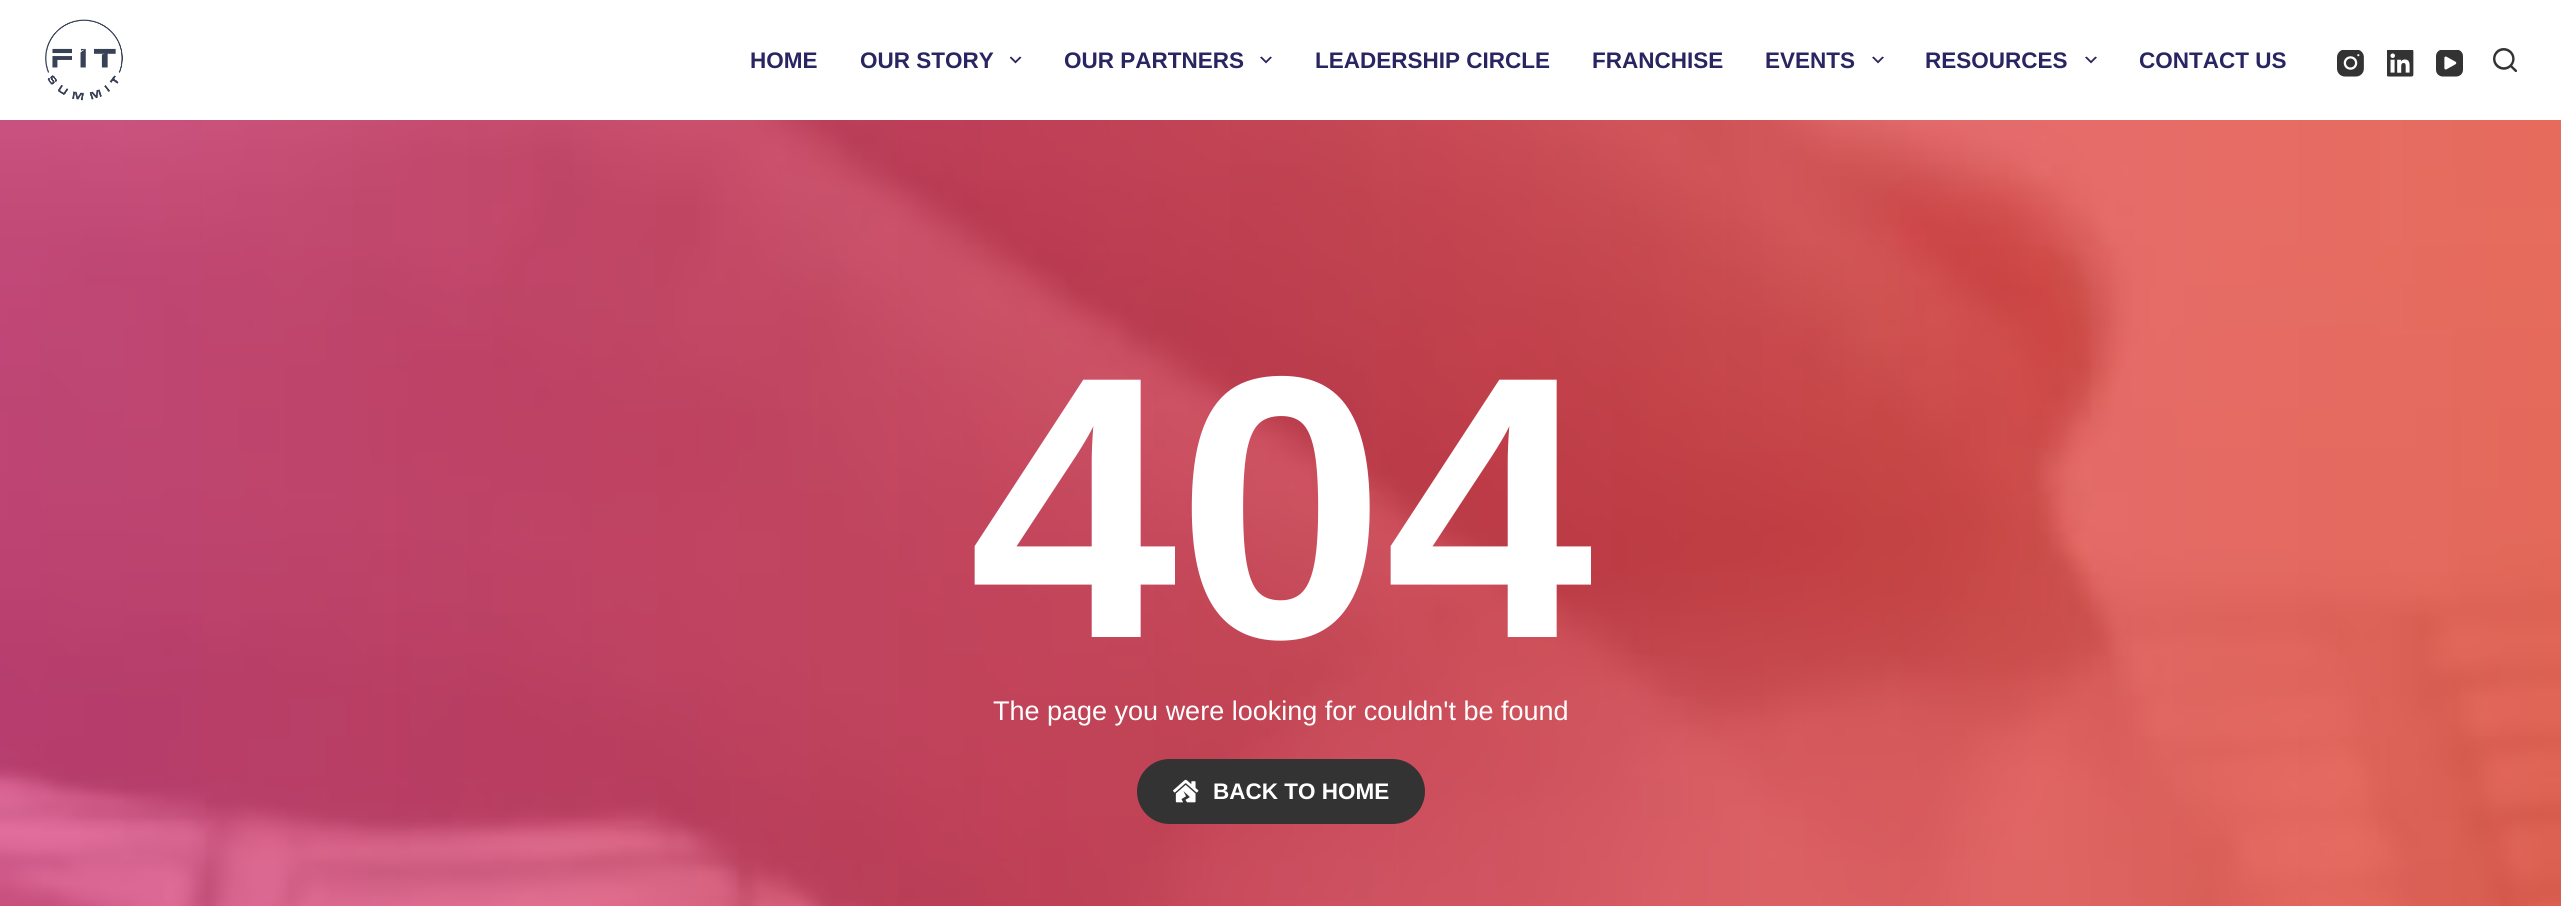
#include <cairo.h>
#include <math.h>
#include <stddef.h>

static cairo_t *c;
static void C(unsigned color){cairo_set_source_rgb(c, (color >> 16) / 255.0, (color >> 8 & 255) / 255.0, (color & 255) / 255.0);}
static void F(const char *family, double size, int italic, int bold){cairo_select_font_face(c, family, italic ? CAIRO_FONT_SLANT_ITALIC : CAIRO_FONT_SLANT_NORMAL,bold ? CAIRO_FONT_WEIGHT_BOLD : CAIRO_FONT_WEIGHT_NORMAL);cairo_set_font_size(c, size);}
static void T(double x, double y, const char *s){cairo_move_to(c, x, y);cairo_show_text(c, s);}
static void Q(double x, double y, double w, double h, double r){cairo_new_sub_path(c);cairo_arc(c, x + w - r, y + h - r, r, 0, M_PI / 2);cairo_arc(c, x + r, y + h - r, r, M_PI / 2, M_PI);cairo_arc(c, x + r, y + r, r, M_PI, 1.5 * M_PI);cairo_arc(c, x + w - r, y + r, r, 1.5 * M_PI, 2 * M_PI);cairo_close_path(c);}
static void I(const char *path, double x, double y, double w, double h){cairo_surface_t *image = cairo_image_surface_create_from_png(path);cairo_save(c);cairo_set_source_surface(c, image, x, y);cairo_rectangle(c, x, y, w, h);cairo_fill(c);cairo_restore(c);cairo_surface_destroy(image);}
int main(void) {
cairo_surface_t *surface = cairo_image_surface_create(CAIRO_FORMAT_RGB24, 2561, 906);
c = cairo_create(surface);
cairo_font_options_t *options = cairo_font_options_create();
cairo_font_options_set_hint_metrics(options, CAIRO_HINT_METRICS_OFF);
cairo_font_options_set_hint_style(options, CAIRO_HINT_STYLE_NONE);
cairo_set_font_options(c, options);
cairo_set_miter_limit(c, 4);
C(0xffffff);
cairo_paint(c);
I("1.png",45,19,78,82);
F("Liberation Sans",22.5,0,1);
C(0x292561);
T(750,68,"HOME");
T(860,68,"OUR STORY");
I("2.png",1010,56,12,8);
T(1064,68,"OUR PARTNERS");
I("3.png",1260,56,12,8);
T(1315,68,"LEADERSHIP CIRCLE");
T(1592,68,"FRANCHISE");
T(1765,68,"EVENTS");
I("3.png",1872,56,12,8);
T(1925,68,"RESOURCES");
I("3.png",2085,56,12,8);
T(2139,68,"CONTACT US");
I("4.png",2337,50,27,27);
I("5.png",2387,50,27,27);
I("6.png",2436,50,27,27);
I("7.png",2493,48,24,24);
I("8.png",0,120,2561,786);
F("Liberation Sans",374,0,1);
C(0xffffff);
T(969,637,"404");
F("Liberation Sans",27,0,0);
T(993,720,"The page you were looking for couldn't be found");
C(0x333333);
Q(1137,759,288,65,32.5);
cairo_fill(c);
I("9.png",1173,779,26,24);
F("Liberation Sans",22.5,0,1);
C(0xffffff);
T(1213,799,"BACK TO HOME");
cairo_surface_write_to_png(surface, "o.png");
cairo_font_options_destroy(options);
cairo_destroy(c);
cairo_surface_destroy(surface);
return 0;
}
